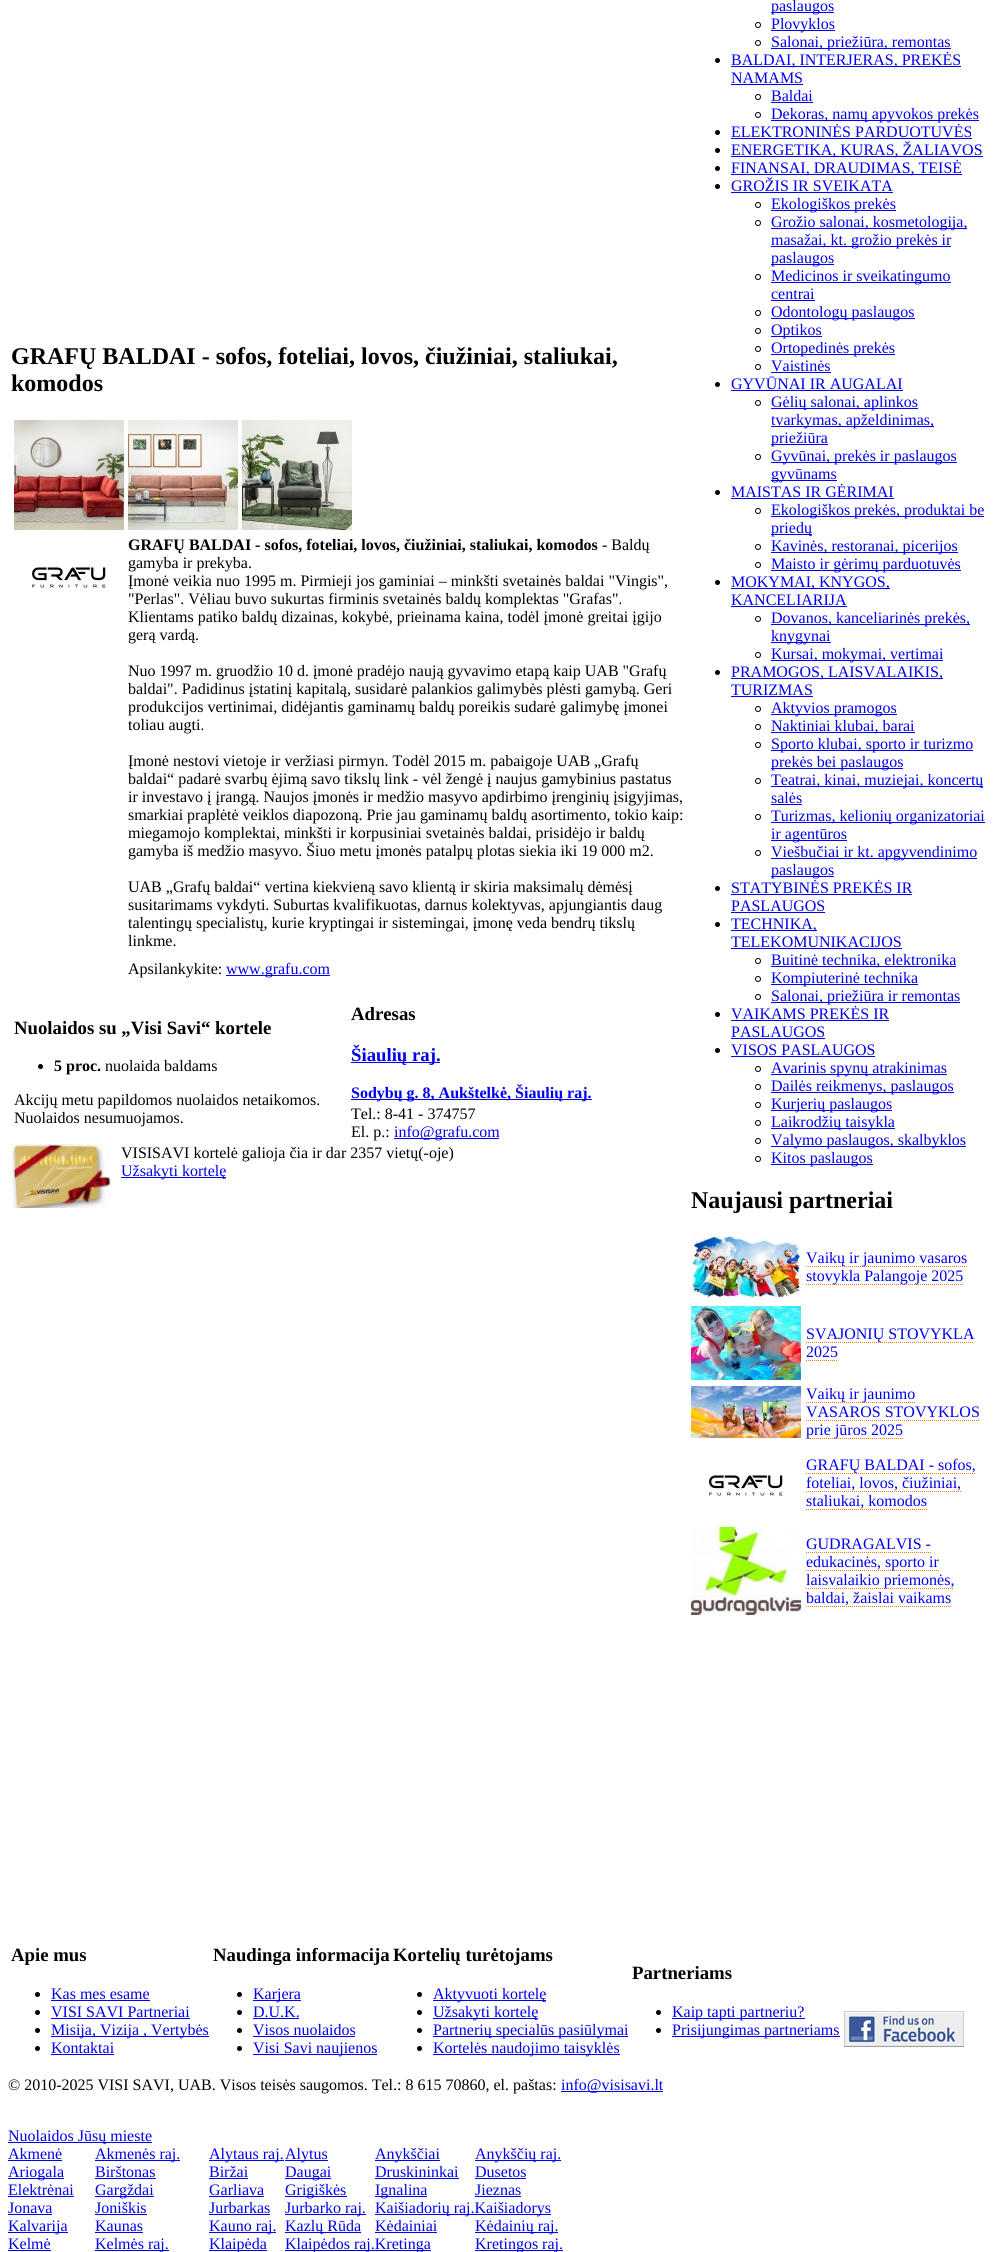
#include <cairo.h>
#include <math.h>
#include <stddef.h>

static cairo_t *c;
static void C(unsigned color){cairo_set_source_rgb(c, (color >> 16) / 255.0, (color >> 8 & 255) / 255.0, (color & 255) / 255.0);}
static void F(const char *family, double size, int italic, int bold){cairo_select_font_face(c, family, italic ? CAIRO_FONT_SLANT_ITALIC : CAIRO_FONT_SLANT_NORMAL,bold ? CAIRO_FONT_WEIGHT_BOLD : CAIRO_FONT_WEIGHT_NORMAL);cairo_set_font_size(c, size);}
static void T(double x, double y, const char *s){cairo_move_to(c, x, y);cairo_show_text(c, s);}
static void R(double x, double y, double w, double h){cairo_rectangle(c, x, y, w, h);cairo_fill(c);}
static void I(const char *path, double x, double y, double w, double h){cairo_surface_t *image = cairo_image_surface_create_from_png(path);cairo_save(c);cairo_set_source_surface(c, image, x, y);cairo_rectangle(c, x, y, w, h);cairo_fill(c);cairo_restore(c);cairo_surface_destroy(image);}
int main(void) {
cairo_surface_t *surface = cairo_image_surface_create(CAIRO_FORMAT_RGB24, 997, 2252);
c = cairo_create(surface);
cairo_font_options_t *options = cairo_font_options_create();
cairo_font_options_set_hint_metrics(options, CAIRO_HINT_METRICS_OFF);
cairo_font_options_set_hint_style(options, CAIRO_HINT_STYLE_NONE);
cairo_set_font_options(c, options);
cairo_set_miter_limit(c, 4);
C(0xffffff);
cairo_paint(c);
F("Liberation Serif",24,0,1);
C(0x000000);
T(11,364,"GRAFŲ BALDAI - sofos, foteliai, lovos, čiužiniai, staliukai,");
T(11,391,"komodos");
I("1.png",14,420,110,110);
I("2.png",128,420,110,110);
I("3.png",242,420,110,110);
I("4.png",32,567,74,21);
F("Liberation Serif",16,0,1);
T(128,550,"GRAFŲ BALDAI - sofos, foteliai, lovos, čiužiniai, staliukai, komodos");
F("Liberation Serif",16,0,0);
T(602,550,"- Baldų");
T(128,568,"gamyba ir prekyba.");
T(128,586,"Įmonė veikia nuo 1995 m. Pirmieji jos gaminiai – minkšti svetainės baldai \"Vingis\",");
T(128,604,"\"Perlas\". Vėliau buvo sukurtas firminis svetainės baldų komplektas \"Grafas\".");
T(128,622,"Klientams patiko baldų dizainas, kokybė, prieinama kaina, todėl įmonė greitai įgijo");
T(128,640,"gerą vardą.");
T(128,676,"Nuo 1997 m. gruodžio 10 d. įmonė pradėjo naują gyvavimo etapą kaip UAB \"Grafų");
T(128,694,"baldai\". Padidinus įstatinį kapitalą, susidarė palankios galimybės plėsti gamybą. Geri");
T(128,712,"produkcijos vertinimai, didėjantis gaminamų baldų poreikis sudarė galimybę įmonei");
T(128,730,"toliau augti.");
T(128,766,"Įmonė nestovi vietoje ir veržiasi pirmyn. Todėl 2015 m. pabaigoje UAB „Grafų");
T(128,784,"baldai“ padarė svarbų ėjimą savo tikslų link - vėl žengė į naujus gamybinius pastatus");
T(128,802,"ir investavo į įrangą. Naujos įmonės ir medžio masyvo apdirbimo įrenginių įsigyjimas,");
T(128,820,"smarkiai praplėtė veiklos diapozoną. Prie jau gaminamų baldų asortimento, tokio kaip:");
T(128,838,"miegamojo komplektai, minkšti ir korpusiniai svetainės baldai, prisidėjo ir baldų");
T(128,856,"gamyba iš medžio masyvo. Šiuo metu įmonės patalpų plotas siekia iki 19 000 m2.");
T(128,892,"UAB „Grafų baldai“ vertina kiekvieną savo klientą ir skiria maksimalų dėmėsį");
T(128,910,"susitarimams vykdyti. Suburtas kvalifikuotas, darnus kolektyvas, apjungiantis daug");
T(128,928,"talentingų specialistų, kurie kryptingai ir sistemingai, įmonę veda bendrų tikslų");
T(128,946,"linkme.");
T(128,974,"Apsilankykite:");
C(0x0000ee);
R(226,975,104,1);
T(226,974,"www.grafu.com");
F("Liberation Serif",18.75,0,1);
C(0x000000);
T(14,1034,"Nuolaidos su „Visi Savi“ kortele");
cairo_new_path(c);
cairo_arc(c,40.5,1066.5,2.5,0,2 * M_PI);
cairo_fill(c);
F("Liberation Serif",16,0,1);
T(54,1071,"5 proc.");
F("Liberation Serif",16,0,0);
T(105,1071,"nuolaida baldams");
T(14,1105,"Akcijų metu papildomos nuolaidos netaikomos.");
T(14,1123,"Nuolaidos nesumuojamos.");
F("Liberation Serif",18.75,0,1);
T(351,1020,"Adresas");
C(0x0000ee);
R(351,1062,89,1);
T(351,1061,"Šiaulių raj.");
R(351,1099,241,1);
F("Liberation Serif",16,0,1);
T(351,1098,"Sodybų g. 8, Aukštelkė, Šiaulių raj.");
F("Liberation Serif",16,0,0);
C(0x000000);
T(351,1119,"Tel.: 8-41 - 374757");
T(351,1137,"El. p.:");
C(0x0000ee);
R(394,1138,105,1);
T(394,1137,"info@grafu.com");
I("5.png",11,1144,100,64);
C(0x000000);
T(121,1158,"VISISAVI kortelė galioja čia ir dar 2357 vietų(-oje)");
C(0x0000ee);
R(121,1177,105,1);
T(121,1176,"Užsakyti kortelę");
R(771,12,63,1);
T(771,11,"paslaugos");
cairo_new_path(c);
cairo_arc(c,758,25,2.5,0,2 * M_PI);
C(0x000000);
cairo_set_line_width(c,1);
cairo_stroke(c);
C(0x0000ee);
R(771,30,64,1);
T(771,29,"Plovyklos");
cairo_new_path(c);
cairo_arc(c,758,43,2.5,0,2 * M_PI);
C(0x000000);
cairo_stroke(c);
C(0x0000ee);
R(771,48,180,1);
T(771,47,"Salonai, priežiūra, remontas");
C(0x000000);
cairo_new_path(c);
cairo_arc(c,717.5,60.5,2.5,0,2 * M_PI);
cairo_fill(c);
C(0x0000ee);
R(731,66,230,1);
T(731,65,"BALDAI, INTERJERAS, PREKĖS");
T(731,83,"NAMAMS");
R(731,84,72,1);
cairo_new_path(c);
cairo_arc(c,758,97,2.5,0,2 * M_PI);
C(0x000000);
cairo_stroke(c);
C(0x0000ee);
T(771,101,"Baldai");
R(771,102,42,1);
cairo_new_path(c);
cairo_arc(c,758,115,2.5,0,2 * M_PI);
C(0x000000);
cairo_stroke(c);
C(0x0000ee);
R(771,120,208,1);
T(771,119,"Dekoras, namų apyvokos prekės");
C(0x000000);
cairo_new_path(c);
cairo_arc(c,717.5,132.5,2.5,0,2 * M_PI);
cairo_fill(c);
C(0x0000ee);
T(731,137,"ELEKTRONINĖS PARDUOTUVĖS");
R(731,138,241,1);
C(0x000000);
cairo_new_path(c);
cairo_arc(c,717.5,150.5,2.5,0,2 * M_PI);
cairo_fill(c);
C(0x0000ee);
R(731,156,252,1);
T(731,155,"ENERGETIKA, KURAS, ŽALIAVOS");
C(0x000000);
cairo_new_path(c);
cairo_arc(c,717.5,168.5,2.5,0,2 * M_PI);
cairo_fill(c);
C(0x0000ee);
R(731,174,231,1);
T(731,173,"FINANSAI, DRAUDIMAS, TEISĖ");
C(0x000000);
cairo_new_path(c);
cairo_arc(c,717.5,186.5,2.5,0,2 * M_PI);
cairo_fill(c);
C(0x0000ee);
T(731,191,"GROŽIS IR SVEIKATA");
R(731,192,162,1);
cairo_new_path(c);
cairo_arc(c,758,205,2.5,0,2 * M_PI);
C(0x000000);
cairo_stroke(c);
C(0x0000ee);
R(771,210,125,1);
T(771,209,"Ekologiškos prekės");
cairo_new_path(c);
cairo_arc(c,758,223,2.5,0,2 * M_PI);
C(0x000000);
cairo_stroke(c);
C(0x0000ee);
R(771,228,196,1);
T(771,227,"Grožio salonai, kosmetologija,");
R(771,246,180,1);
T(771,245,"masažai, kt. grožio prekės ir");
R(771,264,63,1);
T(771,263,"paslaugos");
cairo_new_path(c);
cairo_arc(c,758,277,2.5,0,2 * M_PI);
C(0x000000);
cairo_stroke(c);
C(0x0000ee);
R(771,282,180,1);
T(771,281,"Medicinos ir sveikatingumo");
T(771,299,"centrai");
R(771,300,44,1);
cairo_new_path(c);
cairo_arc(c,758,313,2.5,0,2 * M_PI);
C(0x000000);
cairo_stroke(c);
C(0x0000ee);
R(771,318,144,1);
T(771,317,"Odontologų paslaugos");
cairo_new_path(c);
cairo_arc(c,758,331,2.5,0,2 * M_PI);
C(0x000000);
cairo_stroke(c);
C(0x0000ee);
R(771,336,51,1);
T(771,335,"Optikos");
cairo_new_path(c);
cairo_arc(c,758,349,2.5,0,2 * M_PI);
C(0x000000);
cairo_stroke(c);
C(0x0000ee);
R(771,354,124,1);
T(771,353,"Ortopedinės prekės");
cairo_new_path(c);
cairo_arc(c,758,367,2.5,0,2 * M_PI);
C(0x000000);
cairo_stroke(c);
C(0x0000ee);
T(771,371,"Vaistinės");
R(771,372,60,1);
C(0x000000);
cairo_new_path(c);
cairo_arc(c,717.5,384.5,2.5,0,2 * M_PI);
cairo_fill(c);
C(0x0000ee);
T(731,389,"GYVŪNAI IR AUGALAI");
R(731,390,172,1);
cairo_new_path(c);
cairo_arc(c,758,403,2.5,0,2 * M_PI);
C(0x000000);
cairo_stroke(c);
C(0x0000ee);
R(771,408,147,1);
T(771,407,"Gėlių salonai, aplinkos");
R(771,426,163,1);
T(771,425,"tvarkymas, apželdinimas,");
R(771,444,57,1);
T(771,443,"priežiūra");
cairo_new_path(c);
cairo_arc(c,758,457,2.5,0,2 * M_PI);
C(0x000000);
cairo_stroke(c);
C(0x0000ee);
R(771,462,186,1);
T(771,461,"Gyvūnai, prekės ir paslaugos");
R(771,480,66,1);
T(771,479,"gyvūnams");
C(0x000000);
cairo_new_path(c);
cairo_arc(c,717.5,492.5,2.5,0,2 * M_PI);
cairo_fill(c);
C(0x0000ee);
T(731,497,"MAISTAS IR GĖRIMAI");
R(731,498,163,1);
cairo_new_path(c);
cairo_arc(c,758,511,2.5,0,2 * M_PI);
C(0x000000);
cairo_stroke(c);
C(0x0000ee);
R(771,516,213,1);
T(771,515,"Ekologiškos prekės, produktai be");
R(771,534,41,1);
T(771,533,"priedų");
cairo_new_path(c);
cairo_arc(c,758,547,2.5,0,2 * M_PI);
C(0x000000);
cairo_stroke(c);
C(0x0000ee);
R(771,552,187,1);
T(771,551,"Kavinės, restoranai, picerijos");
cairo_new_path(c);
cairo_arc(c,758,565,2.5,0,2 * M_PI);
C(0x000000);
cairo_stroke(c);
C(0x0000ee);
R(771,570,190,1);
T(771,569,"Maisto ir gėrimų parduotuvės");
C(0x000000);
cairo_new_path(c);
cairo_arc(c,717.5,582.5,2.5,0,2 * M_PI);
cairo_fill(c);
C(0x0000ee);
R(731,588,159,1);
T(731,587,"MOKYMAI, KNYGOS,");
T(731,605,"KANCELIARIJA");
R(731,606,116,1);
cairo_new_path(c);
cairo_arc(c,758,619,2.5,0,2 * M_PI);
C(0x000000);
cairo_stroke(c);
C(0x0000ee);
R(771,624,199,1);
T(771,623,"Dovanos, kanceliarinės prekės,");
R(771,642,60,1);
T(771,641,"knygynai");
cairo_new_path(c);
cairo_arc(c,758,655,2.5,0,2 * M_PI);
C(0x000000);
cairo_stroke(c);
C(0x0000ee);
R(771,660,172,1);
T(771,659,"Kursai, mokymai, vertimai");
C(0x000000);
cairo_new_path(c);
cairo_arc(c,717.5,672.5,2.5,0,2 * M_PI);
cairo_fill(c);
C(0x0000ee);
R(731,678,212,1);
T(731,677,"PRAMOGOS, LAISVALAIKIS,");
T(731,695,"TURIZMAS");
R(731,696,82,1);
cairo_new_path(c);
cairo_arc(c,758,709,2.5,0,2 * M_PI);
C(0x000000);
cairo_stroke(c);
C(0x0000ee);
R(771,714,126,1);
T(771,713,"Aktyvios pramogos");
cairo_new_path(c);
cairo_arc(c,758,727,2.5,0,2 * M_PI);
C(0x000000);
cairo_stroke(c);
C(0x0000ee);
R(771,732,144,1);
T(771,731,"Naktiniai klubai, barai");
cairo_new_path(c);
cairo_arc(c,758,745,2.5,0,2 * M_PI);
C(0x000000);
cairo_stroke(c);
C(0x0000ee);
R(771,750,202,1);
T(771,749,"Sporto klubai, sporto ir turizmo");
R(771,768,132,1);
T(771,767,"prekės bei paslaugos");
cairo_new_path(c);
cairo_arc(c,758,781,2.5,0,2 * M_PI);
C(0x000000);
cairo_stroke(c);
C(0x0000ee);
R(771,786,212,1);
T(771,785,"Teatrai, kinai, muziejai, koncertų");
T(771,803,"salės");
R(771,804,31,1);
cairo_new_path(c);
cairo_arc(c,758,817,2.5,0,2 * M_PI);
C(0x000000);
cairo_stroke(c);
C(0x0000ee);
R(771,822,214,1);
T(771,821,"Turizmas, kelionių organizatoriai");
R(771,840,76,1);
T(771,839,"ir agentūros");
cairo_new_path(c);
cairo_arc(c,758,853,2.5,0,2 * M_PI);
C(0x000000);
cairo_stroke(c);
C(0x0000ee);
R(771,858,206,1);
T(771,857,"Viešbučiai ir kt. apgyvendinimo");
R(771,876,63,1);
T(771,875,"paslaugos");
C(0x000000);
cairo_new_path(c);
cairo_arc(c,717.5,888.5,2.5,0,2 * M_PI);
cairo_fill(c);
C(0x0000ee);
T(731,893,"STATYBINĖS PREKĖS IR");
R(731,894,181,1);
T(731,911,"PASLAUGOS");
R(731,912,94,1);
C(0x000000);
cairo_new_path(c);
cairo_arc(c,717.5,924.5,2.5,0,2 * M_PI);
cairo_fill(c);
C(0x0000ee);
R(731,930,86,1);
T(731,929,"TECHNIKA,");
T(731,947,"TELEKOMUNIKACIJOS");
R(731,948,171,1);
cairo_new_path(c);
cairo_arc(c,758,961,2.5,0,2 * M_PI);
C(0x000000);
cairo_stroke(c);
C(0x0000ee);
R(771,966,185,1);
T(771,965,"Buitinė technika, elektronika");
cairo_new_path(c);
cairo_arc(c,758,979,2.5,0,2 * M_PI);
C(0x000000);
cairo_stroke(c);
C(0x0000ee);
R(771,984,147,1);
T(771,983,"Kompiuterinė technika");
cairo_new_path(c);
cairo_arc(c,758,997,2.5,0,2 * M_PI);
C(0x000000);
cairo_stroke(c);
C(0x0000ee);
R(771,1002,189,1);
T(771,1001,"Salonai, priežiūra ir remontas");
C(0x000000);
cairo_new_path(c);
cairo_arc(c,717.5,1014.5,2.5,0,2 * M_PI);
cairo_fill(c);
C(0x0000ee);
T(731,1019,"VAIKAMS PREKĖS IR");
R(731,1020,158,1);
T(731,1037,"PASLAUGOS");
R(731,1038,94,1);
C(0x000000);
cairo_new_path(c);
cairo_arc(c,717.5,1050.5,2.5,0,2 * M_PI);
cairo_fill(c);
C(0x0000ee);
T(731,1055,"VISOS PASLAUGOS");
R(731,1056,144,1);
cairo_new_path(c);
cairo_arc(c,758,1069,2.5,0,2 * M_PI);
C(0x000000);
cairo_stroke(c);
C(0x0000ee);
R(771,1074,176,1);
T(771,1073,"Avarinis spynų atrakinimas");
cairo_new_path(c);
cairo_arc(c,758,1087,2.5,0,2 * M_PI);
C(0x000000);
cairo_stroke(c);
C(0x0000ee);
R(771,1092,183,1);
T(771,1091,"Dailės reikmenys, paslaugos");
cairo_new_path(c);
cairo_arc(c,758,1105,2.5,0,2 * M_PI);
C(0x000000);
cairo_stroke(c);
C(0x0000ee);
R(771,1110,121,1);
T(771,1109,"Kurjerių paslaugos");
cairo_new_path(c);
cairo_arc(c,758,1123,2.5,0,2 * M_PI);
C(0x000000);
cairo_stroke(c);
C(0x0000ee);
R(771,1128,124,1);
T(771,1127,"Laikrodžių taisykla");
cairo_new_path(c);
cairo_arc(c,758,1141,2.5,0,2 * M_PI);
C(0x000000);
cairo_stroke(c);
C(0x0000ee);
R(771,1146,195,1);
T(771,1145,"Valymo paslaugos, skalbyklos");
cairo_new_path(c);
cairo_arc(c,758,1159,2.5,0,2 * M_PI);
C(0x000000);
cairo_stroke(c);
C(0x0000ee);
R(771,1164,102,1);
T(771,1163,"Kitos paslaugos");
F("Liberation Serif",24,0,1);
C(0x000000);
T(691,1208,"Naujausi partneriai");
I("6.png",691,1234,110,65);
cairo_new_path(c);
cairo_move_to(c,806,1266.5);
cairo_line_to(c,967,1266.5);
C(0xef7b16);
cairo_set_dash(c,(double[]){1,1},2,0);
cairo_stroke(c);
F("Liberation Serif",16,0,0);
C(0x0000ee);
T(806,1263,"Vaikų ir jaunimo vasaros");
cairo_new_path(c);
cairo_move_to(c,806,1284.5);
cairo_line_to(c,963,1284.5);
C(0xef7b16);
cairo_stroke(c);
C(0x0000ee);
T(806,1281,"stovykla Palangoje 2025");
I("7.png",691,1306,110,74);
cairo_new_path(c);
cairo_move_to(c,806,1342.5);
cairo_line_to(c,974,1342.5);
C(0xef7b16);
cairo_stroke(c);
C(0x0000ee);
T(806,1339,"SVAJONIŲ STOVYKLA");
T(806,1357,"2025");
cairo_new_path(c);
cairo_move_to(c,806,1360.5);
cairo_line_to(c,838,1360.5);
C(0xef7b16);
cairo_stroke(c);
I("8.png",691,1386,110,52);
cairo_new_path(c);
cairo_move_to(c,806,1402.5);
cairo_line_to(c,915,1402.5);
cairo_stroke(c);
C(0x0000ee);
T(806,1399,"Vaikų ir jaunimo");
T(806,1417,"VASAROS STOVYKLOS");
cairo_new_path(c);
cairo_move_to(c,806,1420.5);
cairo_line_to(c,980,1420.5);
C(0xef7b16);
cairo_stroke(c);
cairo_new_path(c);
cairo_move_to(c,806,1438.5);
cairo_line_to(c,903,1438.5);
cairo_stroke(c);
C(0x0000ee);
T(806,1435,"prie jūros 2025");
I("4.png",709,1475,74,21);
cairo_new_path(c);
cairo_move_to(c,806,1473.5);
cairo_line_to(c,976,1473.5);
C(0xef7b16);
cairo_stroke(c);
C(0x0000ee);
T(806,1470,"GRAFŲ BALDAI - sofos,");
T(806,1488,"foteliai, lovos, čiužiniai,");
cairo_new_path(c);
cairo_move_to(c,806,1491.5);
cairo_line_to(c,961,1491.5);
C(0xef7b16);
cairo_stroke(c);
C(0x0000ee);
T(806,1506,"staliukai, komodos");
cairo_new_path(c);
cairo_move_to(c,806,1509.5);
cairo_line_to(c,927,1509.5);
C(0xef7b16);
cairo_stroke(c);
I("9.png",691,1527,110,88);
C(0x0000ee);
T(806,1549,"GUDRAGALVIS -");
cairo_new_path(c);
cairo_move_to(c,806,1552.5);
cairo_line_to(c,931,1552.5);
C(0xef7b16);
cairo_stroke(c);
cairo_new_path(c);
cairo_move_to(c,806,1570.5);
cairo_line_to(c,939,1570.5);
cairo_stroke(c);
C(0x0000ee);
T(806,1567,"edukacinės, sporto ir");
cairo_new_path(c);
cairo_move_to(c,806,1588.5);
cairo_line_to(c,954,1588.5);
C(0xef7b16);
cairo_stroke(c);
C(0x0000ee);
T(806,1585,"laisvalaikio priemonės,");
T(806,1603,"baldai, žaislai vaikams");
cairo_new_path(c);
cairo_move_to(c,806,1606.5);
cairo_line_to(c,951,1606.5);
C(0xef7b16);
cairo_stroke(c);
F("Liberation Serif",18.75,0,1);
C(0x000000);
T(11,1961,"Apie mus");
cairo_new_path(c);
cairo_arc(c,37.5,1994.5,2.5,0,2 * M_PI);
cairo_fill(c);
F("Liberation Serif",16,0,0);
C(0x0000ee);
T(51,1999,"Kas mes esame");
R(51,2000,99,1);
C(0x000000);
cairo_new_path(c);
cairo_arc(c,37.5,2012.5,2.5,0,2 * M_PI);
cairo_fill(c);
C(0x0000ee);
T(51,2017,"VISI SAVI Partneriai");
R(51,2018,139,1);
C(0x000000);
cairo_new_path(c);
cairo_arc(c,37.5,2030.5,2.5,0,2 * M_PI);
cairo_fill(c);
C(0x0000ee);
R(51,2036,158,1);
T(51,2035,"Misija, Vizija , Vertybės");
C(0x000000);
cairo_new_path(c);
cairo_arc(c,37.5,2048.5,2.5,0,2 * M_PI);
cairo_fill(c);
C(0x0000ee);
T(51,2053,"Kontaktai");
R(51,2054,63,1);
F("Liberation Serif",18.75,0,1);
C(0x000000);
T(213,1961,"Naudinga informacija");
cairo_new_path(c);
cairo_arc(c,239.5,1994.5,2.5,0,2 * M_PI);
cairo_fill(c);
C(0x0000ee);
R(253,2000,48,1);
F("Liberation Serif",16,0,0);
T(253,1999,"Karjera");
C(0x000000);
cairo_new_path(c);
cairo_arc(c,239.5,2012.5,2.5,0,2 * M_PI);
cairo_fill(c);
C(0x0000ee);
T(253,2017,"D.U.K.");
R(253,2018,46,1);
C(0x000000);
cairo_new_path(c);
cairo_arc(c,239.5,2030.5,2.5,0,2 * M_PI);
cairo_fill(c);
C(0x0000ee);
T(253,2035,"Visos nuolaidos");
R(253,2036,102,1);
C(0x000000);
cairo_new_path(c);
cairo_arc(c,239.5,2048.5,2.5,0,2 * M_PI);
cairo_fill(c);
C(0x0000ee);
R(253,2054,124,1);
T(253,2053,"Visi Savi naujienos");
F("Liberation Serif",18.75,0,1);
C(0x000000);
T(393,1961,"Kortelių turėtojams");
cairo_new_path(c);
cairo_arc(c,419.5,1994.5,2.5,0,2 * M_PI);
cairo_fill(c);
C(0x0000ee);
R(433,2000,113,1);
F("Liberation Serif",16,0,0);
T(433,1999,"Aktyvuoti kortelę");
C(0x000000);
cairo_new_path(c);
cairo_arc(c,419.5,2012.5,2.5,0,2 * M_PI);
cairo_fill(c);
C(0x0000ee);
R(433,2018,105,1);
T(433,2017,"Užsakyti kortelę");
C(0x000000);
cairo_new_path(c);
cairo_arc(c,419.5,2030.5,2.5,0,2 * M_PI);
cairo_fill(c);
C(0x0000ee);
R(433,2036,195,1);
T(433,2035,"Partnerių specialūs pasiūlymai");
C(0x000000);
cairo_new_path(c);
cairo_arc(c,419.5,2048.5,2.5,0,2 * M_PI);
cairo_fill(c);
C(0x0000ee);
R(433,2054,187,1);
T(433,2053,"Kortelės naudojimo taisyklės");
F("Liberation Serif",18.75,0,1);
C(0x000000);
T(632,1979,"Partneriams");
cairo_new_path(c);
cairo_arc(c,658.5,2012.5,2.5,0,2 * M_PI);
cairo_fill(c);
C(0x0000ee);
R(672,2018,133,1);
F("Liberation Serif",16,0,0);
T(672,2017,"Kaip tapti partneriu?");
C(0x000000);
cairo_new_path(c);
cairo_arc(c,658.5,2030.5,2.5,0,2 * M_PI);
cairo_fill(c);
C(0x0000ee);
R(672,2036,168,1);
T(672,2035,"Prisijungimas partneriams");
I("10.png",844,2011,120,36);
C(0x000000);
T(8,2090,"© 2010-2025 VISI SAVI, UAB. Visos teisės saugomos. Tel.: 8 615 70860, el. paštas:");
C(0x0000ee);
R(561,2091,102,1);
T(561,2090,"info@visisavi.lt");
R(8,2142,144,1);
T(8,2141,"Nuolaidos Jūsų mieste");
T(8,2159,"Akmenė");
R(8,2160,54,1);
R(95,2160,85,1);
T(95,2159,"Akmenės raj.");
R(209,2160,75,1);
T(209,2159,"Alytaus raj.");
R(285,2160,43,1);
T(285,2159,"Alytus");
R(375,2160,65,1);
T(375,2159,"Anykščiai");
R(475,2160,86,1);
T(475,2159,"Anykščių raj.");
R(8,2178,56,1);
T(8,2177,"Ariogala");
T(95,2177,"Birštonas");
R(95,2178,61,1);
T(209,2177,"Biržai");
R(209,2178,39,1);
R(285,2178,46,1);
T(285,2177,"Daugai");
T(375,2177,"Druskininkai");
R(375,2178,84,1);
T(475,2177,"Dusetos");
R(475,2178,51,1);
T(8,2195,"Elektrėnai");
R(8,2196,66,1);
R(95,2196,59,1);
T(95,2195,"Gargždai");
T(209,2195,"Garliava");
R(209,2196,55,1);
R(285,2196,62,1);
T(285,2195,"Grigiškės");
R(375,2196,52,1);
T(375,2195,"Ignalina");
T(475,2195,"Jieznas");
R(475,2196,46,1);
T(8,2213,"Jonava");
R(8,2214,44,1);
T(95,2213,"Joniškis");
R(95,2214,52,1);
T(209,2213,"Jurbarkas");
R(209,2214,61,1);
R(285,2214,81,1);
T(285,2213,"Jurbarko raj.");
R(375,2214,176,1);
T(375,2213,"Kaišiadorių raj.Kaišiadorys");
R(8,2232,60,1);
T(8,2231,"Kalvarija");
T(95,2231,"Kaunas");
R(95,2232,48,1);
R(209,2232,67,1);
T(209,2231,"Kauno raj.");
R(285,2232,76,1);
T(285,2231,"Kazlų Rūda");
T(375,2231,"Kėdainiai");
R(375,2232,62,1);
R(475,2232,83,1);
T(475,2231,"Kėdainių raj.");
T(8,2249,"Kelmė");
R(8,2250,43,1);
R(95,2250,74,1);
T(95,2249,"Kelmės raj.");
R(209,2250,58,1);
T(209,2249,"Klaipėda");
R(285,2250,146,1);
T(285,2249,"Klaipėdos raj.Kretinga");
R(475,2250,88,1);
T(475,2249,"Kretingos raj.");
cairo_surface_write_to_png(surface, "o.png");
cairo_font_options_destroy(options);
cairo_destroy(c);
cairo_surface_destroy(surface);
return 0;
}
